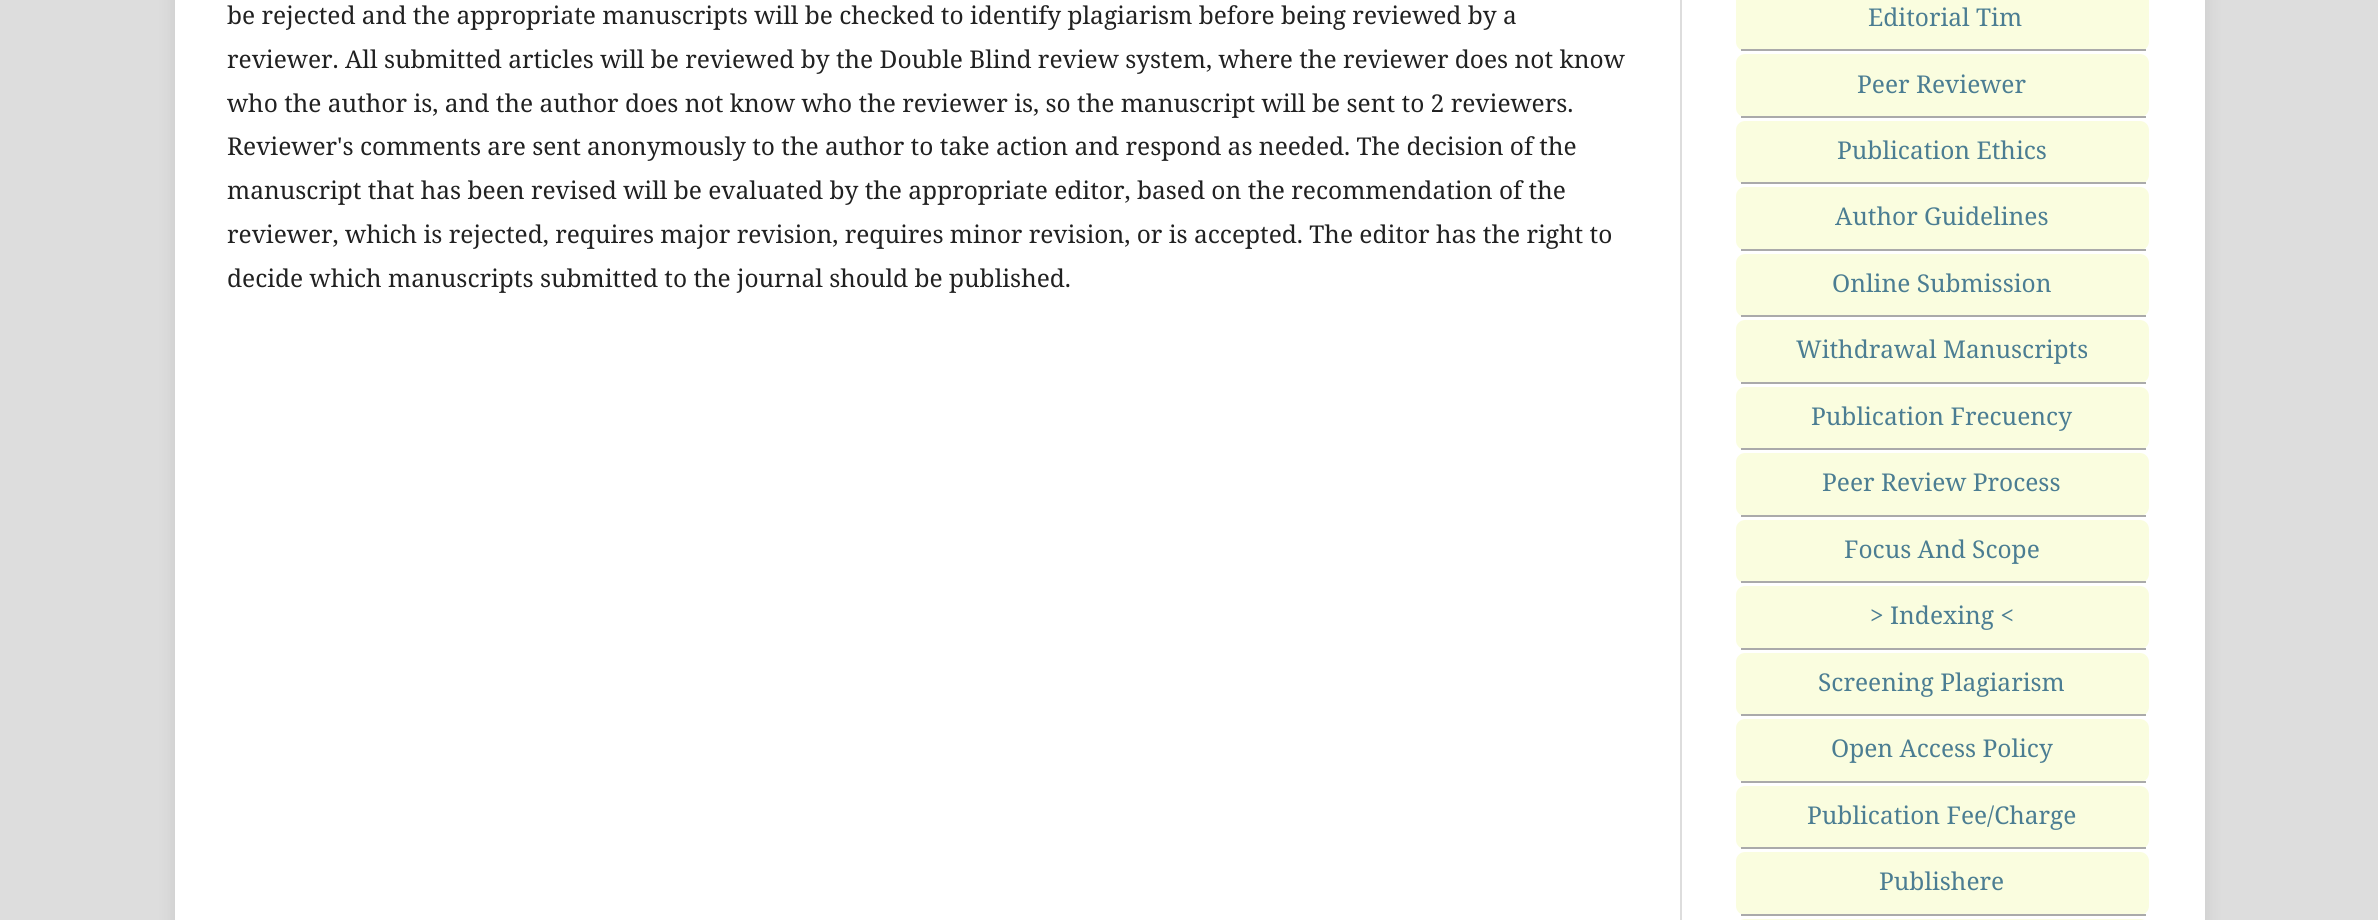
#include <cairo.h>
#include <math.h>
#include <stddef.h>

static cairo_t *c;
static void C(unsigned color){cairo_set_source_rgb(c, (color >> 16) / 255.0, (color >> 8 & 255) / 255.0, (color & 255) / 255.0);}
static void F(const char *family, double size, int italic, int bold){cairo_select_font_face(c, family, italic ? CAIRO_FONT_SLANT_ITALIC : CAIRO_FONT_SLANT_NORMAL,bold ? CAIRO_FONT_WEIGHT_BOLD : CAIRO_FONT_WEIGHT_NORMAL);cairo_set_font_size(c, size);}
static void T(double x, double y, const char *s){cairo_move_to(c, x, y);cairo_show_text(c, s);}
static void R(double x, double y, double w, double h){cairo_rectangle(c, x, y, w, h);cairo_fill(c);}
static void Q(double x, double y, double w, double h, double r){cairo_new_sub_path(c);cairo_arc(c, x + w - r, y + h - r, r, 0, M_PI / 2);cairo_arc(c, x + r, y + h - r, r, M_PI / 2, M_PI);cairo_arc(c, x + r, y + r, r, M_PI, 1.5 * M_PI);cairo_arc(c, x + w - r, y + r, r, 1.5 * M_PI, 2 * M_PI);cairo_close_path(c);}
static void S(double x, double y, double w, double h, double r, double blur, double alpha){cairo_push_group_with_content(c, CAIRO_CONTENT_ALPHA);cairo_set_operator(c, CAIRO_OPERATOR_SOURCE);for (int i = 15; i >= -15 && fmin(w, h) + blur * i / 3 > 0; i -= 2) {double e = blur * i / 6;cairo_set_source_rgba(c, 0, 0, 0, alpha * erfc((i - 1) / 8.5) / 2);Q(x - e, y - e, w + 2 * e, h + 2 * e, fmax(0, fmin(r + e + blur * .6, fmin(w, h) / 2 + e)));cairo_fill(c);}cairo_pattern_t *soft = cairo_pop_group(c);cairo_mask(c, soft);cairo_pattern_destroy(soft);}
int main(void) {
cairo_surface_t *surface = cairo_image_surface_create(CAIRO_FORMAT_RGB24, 2378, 920);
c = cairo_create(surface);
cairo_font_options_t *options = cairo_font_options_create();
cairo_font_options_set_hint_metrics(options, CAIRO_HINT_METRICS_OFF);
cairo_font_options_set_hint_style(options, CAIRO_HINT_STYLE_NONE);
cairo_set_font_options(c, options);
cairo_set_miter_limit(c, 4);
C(0xdddddd);
cairo_paint(c);
C(0x000000);
S(175,-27,2030,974,0,9,.1);
C(0xffffff);
R(175,0,2030,920);
F("Noto Serif",24.5,0,0);
C(0x212121);
T(227,24,"be rejected and the appropriate manuscripts will be checked to identify plagiarism before being reviewed by a");
T(227,68,"reviewer. All submitted articles will be reviewed by the Double Blind review system, where the reviewer does not know");
T(227,112,"who the author is, and the author does not know who the reviewer is, so the manuscript will be sent to 2 reviewers.");
T(227,155,"Reviewer's comments are sent anonymously to the author to take action and respond as needed. The decision of the");
T(227,199,"manuscript that has been revised will be evaluated by the appropriate editor, based on the recommendation of the");
T(227,243,"reviewer, which is rejected, requires major revision, requires minor revision, or is accepted. The editor has the right to");
T(227,287,"decide which manuscripts submitted to the journal should be published.");
C(0xdddddd);
R(1680,0,2,920);
C(0xfafddf);
Q(1736,-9,413,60,9);
cairo_fill(c);
C(0xaaaaaa);
R(1741,49,405,2);
C(0x4b7d92);
T(1868,26,"Editorial Tim");
C(0xfafddf);
Q(1736,54,413,63,9);
cairo_fill(c);
C(0xaaaaaa);
R(1741,116,405,2);
C(0x4b7d92);
T(1857,93,"Peer Reviewer");
C(0xfafddf);
Q(1736,121,413,63,9);
cairo_fill(c);
C(0xaaaaaa);
R(1741,182,405,2);
C(0x4b7d92);
T(1837,159,"Publication Ethics");
C(0xfafddf);
Q(1736,187,413,63,9);
cairo_fill(c);
C(0xaaaaaa);
R(1741,249,405,2);
C(0x4b7d92);
T(1835,225,"Author Guidelines");
C(0xfafddf);
Q(1736,254,413,63,9);
cairo_fill(c);
C(0xaaaaaa);
R(1741,315,405,2);
C(0x4b7d92);
T(1832,292,"Online Submission");
C(0xfafddf);
Q(1736,320,413,63,9);
cairo_fill(c);
C(0xaaaaaa);
R(1741,382,405,2);
C(0x4b7d92);
T(1796,358,"Withdrawal Manuscripts");
C(0xfafddf);
Q(1736,387,413,63,9);
cairo_fill(c);
C(0xaaaaaa);
R(1741,448,405,2);
C(0x4b7d92);
T(1811,425,"Publication Frecuency");
C(0xfafddf);
Q(1736,453,413,63,9);
cairo_fill(c);
C(0xaaaaaa);
R(1741,515,405,2);
C(0x4b7d92);
T(1822,491,"Peer Review Process");
C(0xfafddf);
Q(1736,520,413,63,9);
cairo_fill(c);
C(0xaaaaaa);
R(1741,581,405,2);
C(0x4b7d92);
T(1844,558,"Focus And Scope");
C(0xfafddf);
Q(1736,586,413,63,9);
cairo_fill(c);
C(0xaaaaaa);
R(1741,648,405,2);
C(0x4b7d92);
T(1870,624,"> Indexing <");
C(0xfafddf);
Q(1736,653,413,63,9);
cairo_fill(c);
C(0xaaaaaa);
R(1741,714,405,2);
C(0x4b7d92);
T(1818,691,"Screening Plagiarism");
C(0xfafddf);
Q(1736,719,413,63,9);
cairo_fill(c);
C(0xaaaaaa);
R(1741,781,405,2);
C(0x4b7d92);
T(1831,757,"Open Access Policy");
C(0xfafddf);
Q(1736,786,413,63,9);
cairo_fill(c);
C(0xaaaaaa);
R(1741,847,405,2);
C(0x4b7d92);
T(1807,824,"Publication Fee/Charge");
C(0xfafddf);
Q(1736,852,413,63,9);
cairo_fill(c);
C(0xaaaaaa);
R(1741,914,405,2);
C(0x4b7d92);
T(1879,890,"Publishere");
C(0xfafddf);
Q(1736,919,413,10,9);
cairo_fill(c);
cairo_surface_write_to_png(surface, "o.png");
cairo_font_options_destroy(options);
cairo_destroy(c);
cairo_surface_destroy(surface);
return 0;
}
